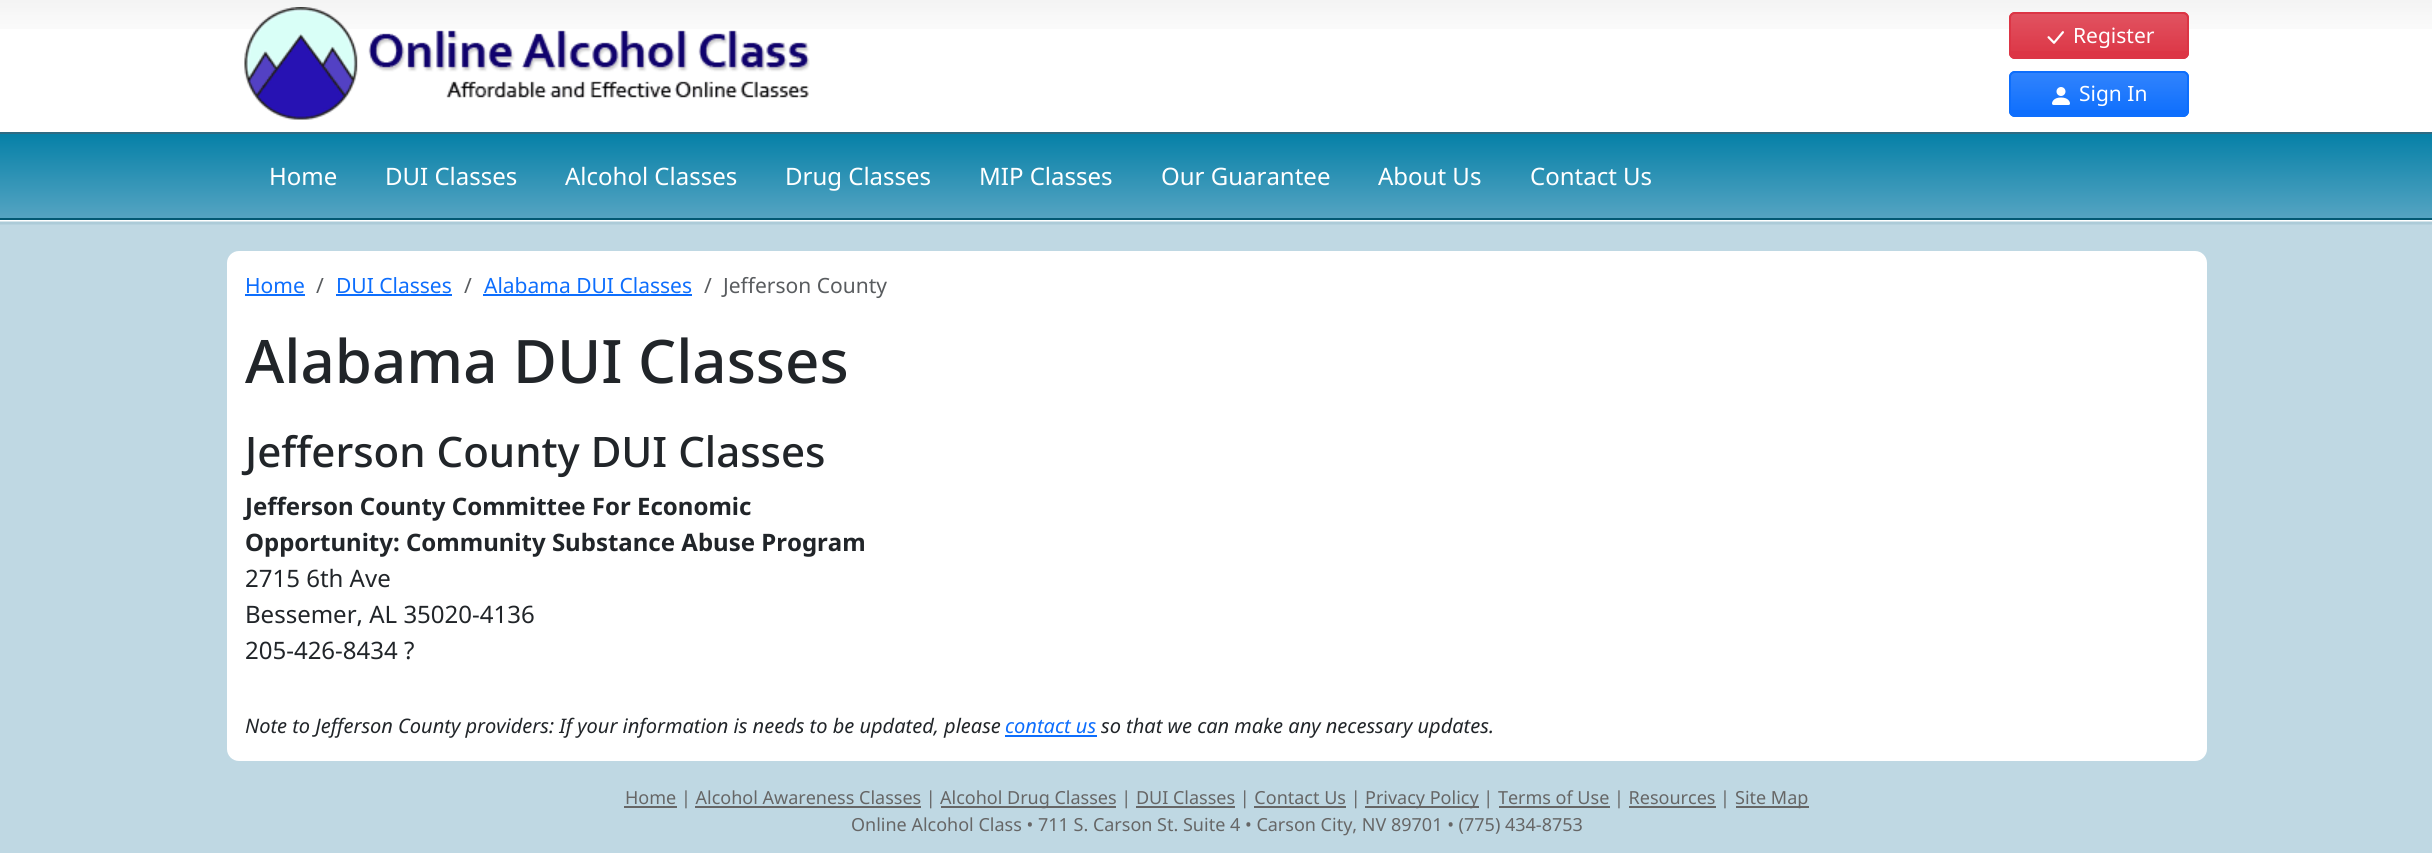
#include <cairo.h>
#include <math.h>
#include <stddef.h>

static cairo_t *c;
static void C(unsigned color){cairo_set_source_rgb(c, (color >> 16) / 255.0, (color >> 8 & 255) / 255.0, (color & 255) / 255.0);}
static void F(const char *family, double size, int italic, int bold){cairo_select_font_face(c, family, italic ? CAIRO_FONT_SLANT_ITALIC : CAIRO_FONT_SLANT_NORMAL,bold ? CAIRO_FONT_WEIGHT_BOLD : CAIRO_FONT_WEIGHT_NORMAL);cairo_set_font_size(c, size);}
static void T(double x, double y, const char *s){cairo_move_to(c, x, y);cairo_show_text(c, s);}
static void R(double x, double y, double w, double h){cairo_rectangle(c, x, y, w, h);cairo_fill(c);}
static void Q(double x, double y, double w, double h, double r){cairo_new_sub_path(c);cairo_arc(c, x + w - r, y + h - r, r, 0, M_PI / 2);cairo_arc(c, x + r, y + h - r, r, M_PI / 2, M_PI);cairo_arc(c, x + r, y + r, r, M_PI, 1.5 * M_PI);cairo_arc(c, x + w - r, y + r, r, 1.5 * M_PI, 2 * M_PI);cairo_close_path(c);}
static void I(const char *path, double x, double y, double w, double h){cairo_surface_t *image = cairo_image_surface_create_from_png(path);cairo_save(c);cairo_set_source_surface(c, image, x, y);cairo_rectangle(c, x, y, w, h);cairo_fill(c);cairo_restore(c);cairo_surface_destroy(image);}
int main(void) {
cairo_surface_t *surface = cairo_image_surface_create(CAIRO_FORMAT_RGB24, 2432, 853);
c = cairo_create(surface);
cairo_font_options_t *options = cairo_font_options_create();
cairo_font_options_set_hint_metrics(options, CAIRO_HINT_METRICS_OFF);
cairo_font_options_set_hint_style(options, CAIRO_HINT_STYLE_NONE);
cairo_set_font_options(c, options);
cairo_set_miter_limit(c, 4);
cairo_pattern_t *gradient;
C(0xbfd8e3);
cairo_paint(c);
C(0xffffff);
R(0,29,2432,103);
I("1.png",0,0,2432,29);
I("2.png",244,7,566,113);
C(0xdc3545);
Q(2009,12,180,47,6);
cairo_fill(c);
cairo_save(c);
Q(2009,12,180,47,6);
cairo_clip(c);
gradient = cairo_pattern_create_linear(2099,13,2099,57);
cairo_pattern_add_color_stop_rgba(gradient,0,1,1,1,.15);
cairo_pattern_add_color_stop_rgba(gradient,1,1,1,1,0);
cairo_set_source(c,gradient);
cairo_pattern_destroy(gradient);
R(2009,14,180,37);
cairo_restore(c);
Q(2010,13,178,45,5);
cairo_stroke(c);
I("3.png",2047,31,17,13);
F("Noto Sans",21,0,0);
C(0xffffff);
T(2073,43,"Register");
C(0x0d6efd);
Q(2009,71,180,46,6);
cairo_fill(c);
cairo_save(c);
Q(2009,71,180,46,6);
cairo_clip(c);
gradient = cairo_pattern_create_linear(2099,72,2099,116);
cairo_pattern_add_color_stop_rgba(gradient,0,1,1,1,.15);
cairo_pattern_add_color_stop_rgba(gradient,1,1,1,1,0);
cairo_set_source(c,gradient);
cairo_pattern_destroy(gradient);
R(2009,72,180,38);
cairo_restore(c);
Q(2010,72,178,44,5);
cairo_stroke(c);
I("4.png",2052,87,18,18);
C(0xffffff);
T(2079,101,"Sign In");
gradient = cairo_pattern_create_linear(1217,133,1217,218);
cairo_pattern_add_color_stop_rgba(gradient,0,0.02,0.502,0.655,1);
cairo_pattern_add_color_stop_rgba(gradient,1,0.333,0.643,0.761,1);
cairo_set_source(c,gradient);
cairo_pattern_destroy(gradient);
R(0,134,2432,84);
C(0x2e6b83);
R(0,132,2432,2);
C(0x035974);
R(0,218,2432,2);
F("Noto Sans",24,0,0);
C(0xffffff);
T(269,185,"Home");
T(385,185,"DUI Classes");
T(565,185,"Alcohol Classes");
T(785,185,"Drug Classes");
T(979,185,"MIP Classes");
T(1161,185,"Our Guarantee");
T(1378,185,"About Us");
T(1530,185,"Contact Us");
I("5.png",0,220,2432,5);
Q(227,251,1980,510,12);
cairo_fill(c);
F("Noto Sans",21,0,0);
C(0x0d6efd);
T(245,293,"Home");
R(245,294,60,2);
C(0x595c5f);
T(316,293,"/");
C(0x0d6efd);
T(336,293,"DUI Classes");
R(336,294,116,2);
C(0x595c5f);
T(464,293,"/");
C(0x0d6efd);
T(484,293,"Alabama DUI Classes");
R(483,294,209,2);
C(0x595c5f);
T(704,293,"/");
T(723,293,"Jefferson County");
F("Noto Sans Medium",60,0,0);
C(0x212529);
T(245,383,"Alabama DUI Classes");
F("Noto Sans Medium",42,0,0);
T(245,467,"Jefferson County DUI Classes");
F("Noto Sans",24,0,1);
T(245,515,"Jefferson County Committee For Economic");
T(245,551,"Opportunity: Community Substance Abuse Program");
F("Noto Sans",24,0,0);
T(245,587,"2715 6th Ave");
T(245,623,"Bessemer, AL 35020-4136");
T(245,659,"205-426-8434 ?");
F("Noto Sans",20,1,0);
T(245,733,"Note to Jefferson County providers: If your information is needs to be updated, please");
C(0x0d6efd);
T(1005,733,"contact us");
R(1005,735,92,2);
C(0x212529);
T(1101,733,"so that we can make any necessary updates.");
C(0x666666);
R(624,806,53,2);
F("Noto Sans",18,0,0);
T(625,804,"Home | Alcohol Awareness Classes |");
R(941,806,175,2);
T(940,804,"Alcohol Drug Classes | DUI Classes | Contact Us |");
R(1365,806,114,2);
T(1365,804,"Privacy Policy | Terms of Use | Resources |");
R(1736,806,73,2);
T(1735,804,"Site Map");
R(695,806,226,2);
R(1136,806,99,2);
R(1254,806,92,2);
R(1499,806,111,2);
R(1629,806,87,2);
T(851,831,"Online Alcohol Class • 711 S. Carson St. Suite 4 • Carson City, NV 89701 • (775) 434-8753");
cairo_surface_write_to_png(surface, "o.png");
cairo_font_options_destroy(options);
cairo_destroy(c);
cairo_surface_destroy(surface);
return 0;
}
